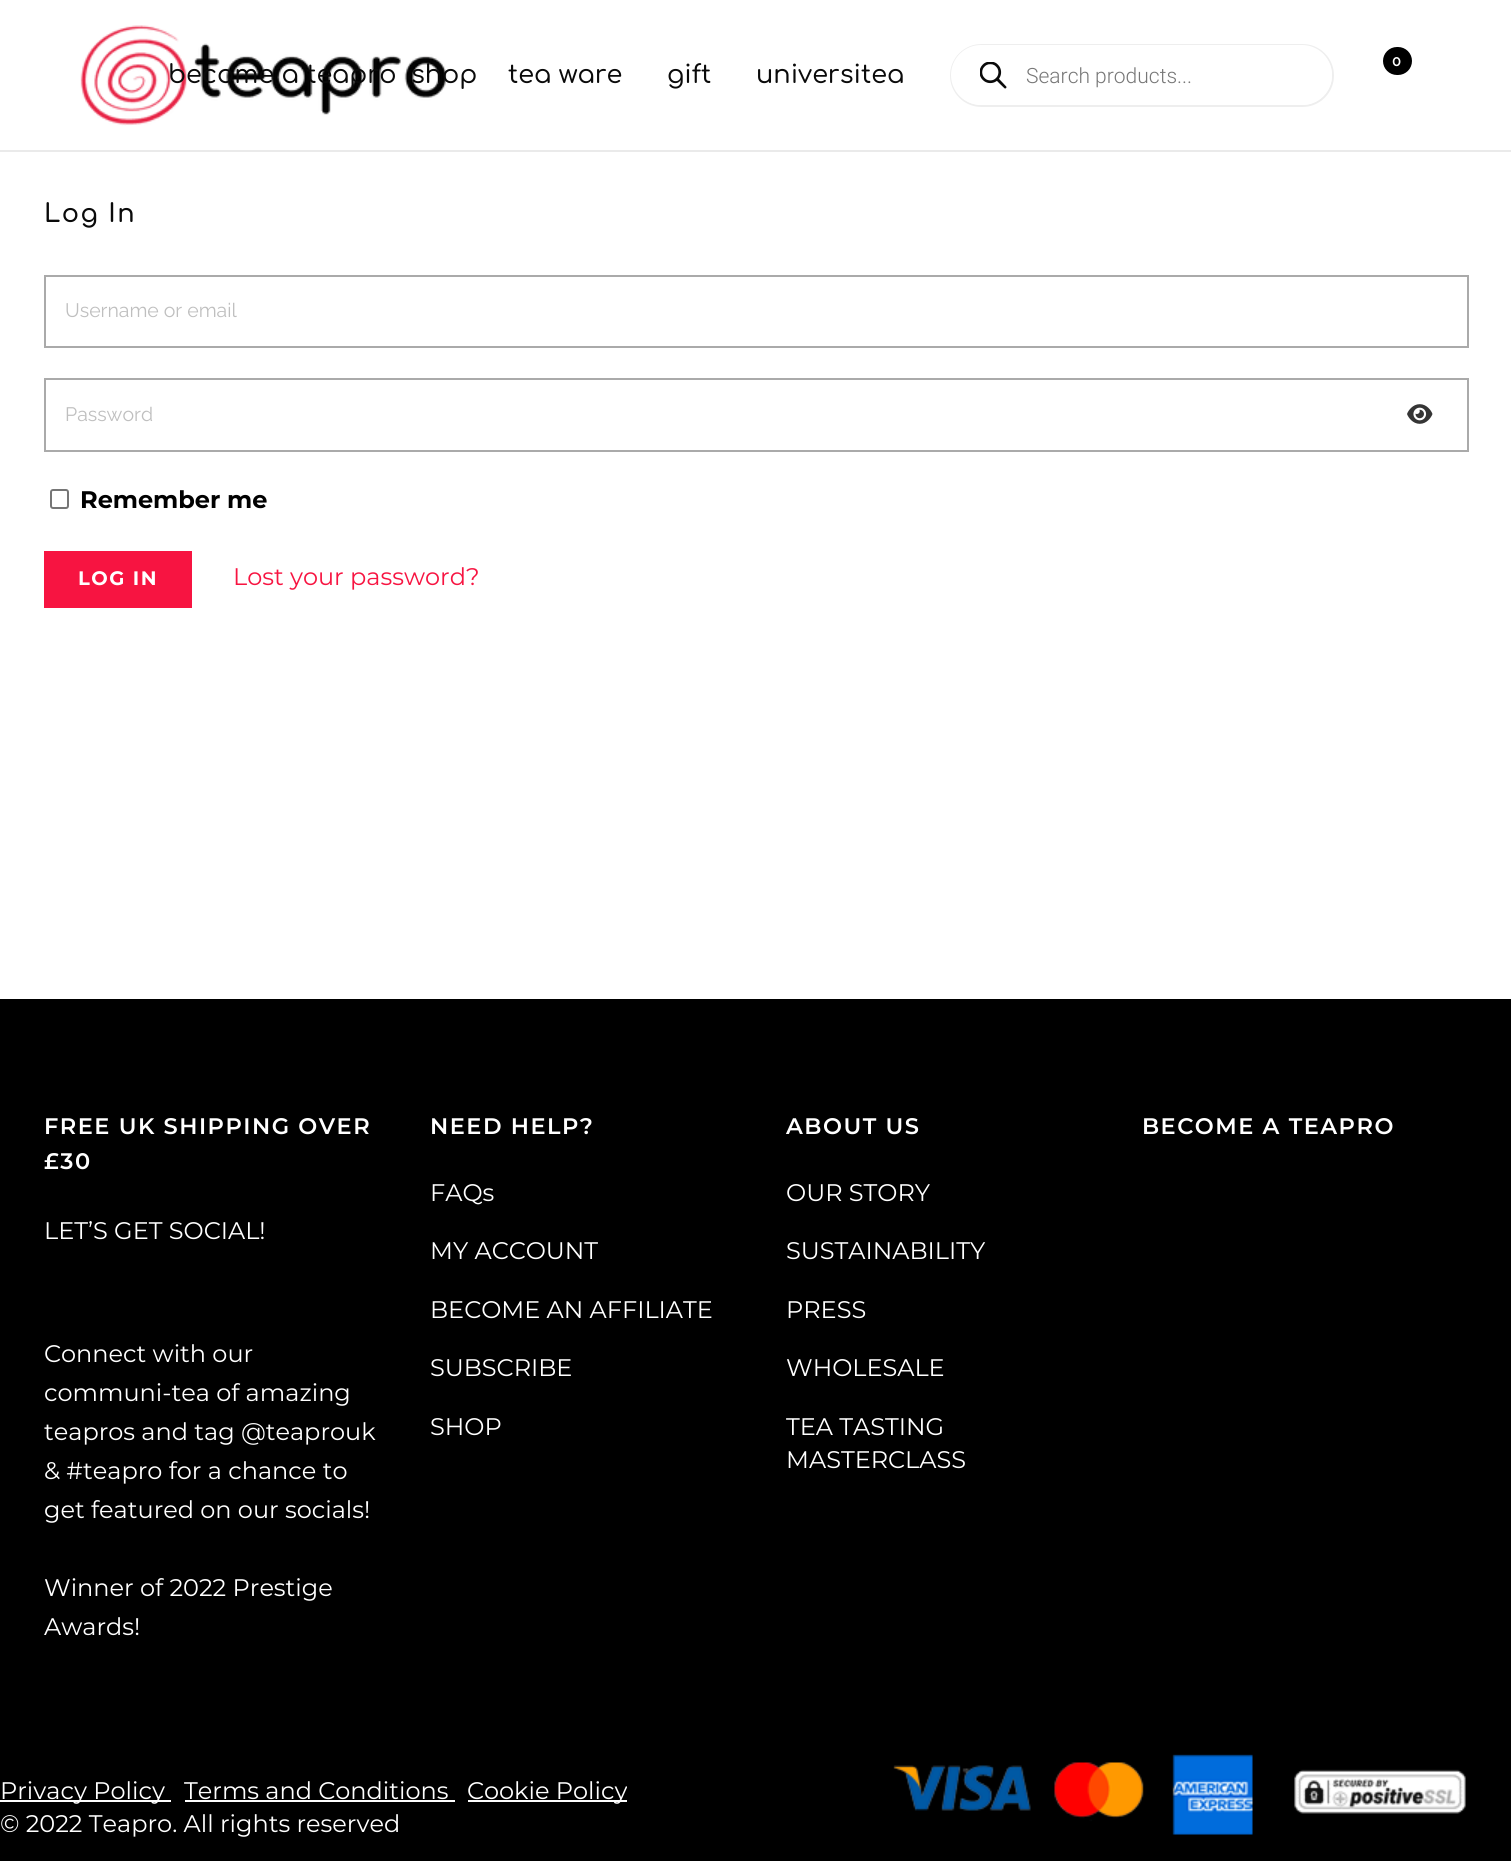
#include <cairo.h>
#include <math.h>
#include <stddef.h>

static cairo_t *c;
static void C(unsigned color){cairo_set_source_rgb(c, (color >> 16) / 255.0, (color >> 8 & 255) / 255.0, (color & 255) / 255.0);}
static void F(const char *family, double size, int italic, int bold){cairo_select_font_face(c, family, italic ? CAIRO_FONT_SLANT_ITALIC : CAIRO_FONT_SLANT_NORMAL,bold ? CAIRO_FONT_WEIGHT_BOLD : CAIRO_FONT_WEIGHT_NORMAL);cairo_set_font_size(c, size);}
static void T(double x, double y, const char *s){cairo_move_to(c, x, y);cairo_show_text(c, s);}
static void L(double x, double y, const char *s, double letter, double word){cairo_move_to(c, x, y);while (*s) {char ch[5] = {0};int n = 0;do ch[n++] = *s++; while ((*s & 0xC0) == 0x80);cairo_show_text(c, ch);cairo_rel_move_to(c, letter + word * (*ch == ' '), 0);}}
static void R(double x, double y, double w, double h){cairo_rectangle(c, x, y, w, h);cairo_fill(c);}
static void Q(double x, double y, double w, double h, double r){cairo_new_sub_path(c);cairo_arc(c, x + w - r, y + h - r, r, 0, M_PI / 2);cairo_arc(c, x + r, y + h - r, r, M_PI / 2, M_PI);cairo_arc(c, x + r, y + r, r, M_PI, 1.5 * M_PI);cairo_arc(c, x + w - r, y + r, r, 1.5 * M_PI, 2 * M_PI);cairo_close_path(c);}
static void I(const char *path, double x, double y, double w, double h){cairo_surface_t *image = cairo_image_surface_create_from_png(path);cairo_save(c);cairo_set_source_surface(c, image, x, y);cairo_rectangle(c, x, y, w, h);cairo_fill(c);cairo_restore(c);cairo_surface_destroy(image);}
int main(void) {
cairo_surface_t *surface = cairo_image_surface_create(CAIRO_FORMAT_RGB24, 1511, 1861);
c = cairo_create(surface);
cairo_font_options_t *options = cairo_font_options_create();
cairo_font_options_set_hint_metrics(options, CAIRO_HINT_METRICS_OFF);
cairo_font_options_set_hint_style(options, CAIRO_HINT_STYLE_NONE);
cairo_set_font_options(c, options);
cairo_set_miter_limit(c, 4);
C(0xffffff);
cairo_paint(c);
C(0xeaeaea);
R(0,150,1511,2);
I("1.png",80,25,367,101);
C(0x000000);
Q(1383,47,29,28,14);
cairo_fill(c);
F("Raleway SemiBold",15,0,0);
C(0xffffff);
T(1392,66,"0");
Q(951,45,382,61,30.5);
C(0xeeeeee);
cairo_stroke(c);
C(0xffffff);
Q(951,45,381,60,30);
cairo_fill(c);
I("2.png",980,62,27,27);
F("Roboto Light",21,0,0);
C(0x777777);
T(1026,83,"Search products...");
F("Comfortaa Medium",25.5,0,0);
C(0x0a0a0a);
T(168,83,"become a teapro");
T(411,83,"shop");
T(508,83,"tea ware");
T(667,83,"gift");
T(756,83,"universitea");
F("Comfortaa SemiBold",25.5,0,0);
L(44,222,"Log In",1.5,0);
cairo_rectangle(c,45,276,1423,71);
C(0xaaaaaa);
cairo_stroke(c);
F("Raleway",19.5,0,0);
C(0xbfbfbf);
T(65,317,"Username or email");
cairo_rectangle(c,45,379,1423,72);
C(0xaaaaaa);
cairo_stroke(c);
C(0xbfbfbf);
T(65,421,"Password");
I("3.png",1407,404,26,20);
Q(51,490,17,18,2);
C(0x767676);
cairo_stroke(c);
F("Montserrat",24,0,1);
C(0x000000);
T(80,508,"Remember me");
C(0xf71441);
R(44,551,148,57);
F("Montserrat",19.5,0,1);
C(0xffffff);
L(78,585,"LOG IN",1.5,0);
F("Montserrat",24,0,0);
C(0xf71441);
T(233,585,"Lost your password?");
C(0x000000);
R(0,999,1511,862);
F("Montserrat SemiBold",22.5,0,0);
C(0xffffff);
L(44,1134,"FREE UK SHIPPING OVER",1.5,0);
L(44,1169,"£30",1.5,0);
F("Montserrat",24,0,0);
T(44,1239,"LET’S GET SOCIAL!");
T(44,1362,"Connect with our");
T(44,1401,"communi-tea of amazing");
T(44,1440,"teapros and tag @teaprouk");
T(44,1479,"& #teapro for a chance to");
T(44,1518,"get featured on our socials!");
T(44,1596,"Winner of 2022 Prestige");
T(44,1635,"Awards!");
F("Montserrat SemiBold",22.5,0,0);
L(430,1134,"NEED HELP?",1.5,0);
F("Montserrat",24,0,0);
T(430,1201,"FAQs");
T(430,1259,"MY ACCOUNT");
T(430,1318,"BECOME AN AFFILIATE");
T(430,1376,"SUBSCRIBE");
T(430,1435,"SHOP");
F("Montserrat SemiBold",22.5,0,0);
L(786,1134,"ABOUT US",1.5,0);
F("Montserrat",24,0,0);
T(786,1201,"OUR STORY");
T(786,1259,"SUSTAINABILITY");
T(786,1318,"PRESS");
T(786,1376,"WHOLESALE");
T(786,1435,"TEA TASTING");
T(786,1468,"MASTERCLASS");
F("Montserrat SemiBold",22.5,0,0);
L(1142,1134,"BECOME A TEAPRO",1.5,0);
R(0,1800,171,2);
F("Montserrat",24,0,0);
T(0,1799,"Privacy Policy");
T(184,1799,"Terms and Conditions");
R(185,1800,270,2);
R(468,1800,159,2);
T(467,1799,"Cookie Policy");
T(0,1832,"© 2022 Teapro. All rights reserved");
I("4.png",893,1754,573,81);
cairo_surface_write_to_png(surface, "o.png");
cairo_font_options_destroy(options);
cairo_destroy(c);
cairo_surface_destroy(surface);
return 0;
}
